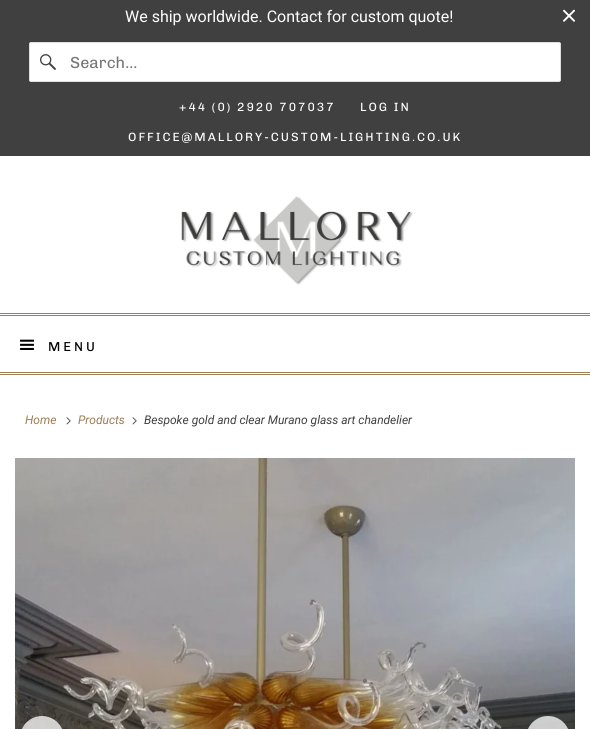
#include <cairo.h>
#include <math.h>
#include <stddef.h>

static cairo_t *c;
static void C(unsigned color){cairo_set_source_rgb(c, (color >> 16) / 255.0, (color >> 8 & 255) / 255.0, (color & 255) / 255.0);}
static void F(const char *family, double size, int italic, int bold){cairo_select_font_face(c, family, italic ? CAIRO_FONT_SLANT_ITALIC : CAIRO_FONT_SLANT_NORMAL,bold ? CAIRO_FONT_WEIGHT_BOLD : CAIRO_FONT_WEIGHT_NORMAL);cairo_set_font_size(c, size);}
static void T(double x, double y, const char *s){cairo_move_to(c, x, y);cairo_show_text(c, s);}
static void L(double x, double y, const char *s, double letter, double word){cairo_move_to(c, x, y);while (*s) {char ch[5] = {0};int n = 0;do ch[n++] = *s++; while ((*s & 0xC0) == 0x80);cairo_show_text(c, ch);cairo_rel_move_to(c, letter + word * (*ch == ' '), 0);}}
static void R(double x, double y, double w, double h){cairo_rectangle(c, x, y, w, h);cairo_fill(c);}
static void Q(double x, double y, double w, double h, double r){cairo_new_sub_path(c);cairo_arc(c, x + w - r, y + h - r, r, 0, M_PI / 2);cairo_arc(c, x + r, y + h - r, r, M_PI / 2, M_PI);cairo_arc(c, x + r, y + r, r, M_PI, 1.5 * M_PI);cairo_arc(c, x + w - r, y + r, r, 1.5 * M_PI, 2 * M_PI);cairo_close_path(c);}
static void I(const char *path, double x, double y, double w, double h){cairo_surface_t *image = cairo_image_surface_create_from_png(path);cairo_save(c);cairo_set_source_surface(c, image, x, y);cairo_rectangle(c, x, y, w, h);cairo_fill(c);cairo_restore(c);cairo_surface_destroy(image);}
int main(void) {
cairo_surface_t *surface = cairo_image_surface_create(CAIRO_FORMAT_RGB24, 590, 729);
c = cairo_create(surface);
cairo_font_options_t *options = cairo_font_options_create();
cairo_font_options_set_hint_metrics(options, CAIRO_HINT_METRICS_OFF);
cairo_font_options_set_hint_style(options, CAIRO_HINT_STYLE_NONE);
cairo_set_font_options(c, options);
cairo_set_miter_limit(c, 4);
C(0xffffff);
cairo_paint(c);
C(0x404040);
R(0,0,590,156);
F("Roboto",16,0,0);
C(0xffffff);
T(125,22,"We ship worldwide. Contact for custom quote!");
I("1.png",563,9,12,13);
Q(29.5,42.5,531,39,1.5);
cairo_fill_preserve(c);
C(0xdfdfdf);
cairo_set_line_width(c,1);
cairo_stroke(c);
I("2.png",40,54,16,16);
F("Chivo",16,0,0);
C(0x757575);
T(70,68,"Search...");
F("Chivo",12,0,0);
C(0xffffff);
L(179,111,"+44 (0) 2920 707037",2,0);
L(360,111,"LOG IN",2,0);
L(128,141,"OFFICE@MALLORY-CUSTOM-LIGHTING.CO.UK",2,0);
I("3.png",181,196,232,89);
C(0x9a7e54);
R(0,313,590,1);
R(0,315,590,1);
R(0,372,590,1);
R(0,374,590,1);
I("4.png",20,339,14,11);
F("Chivo",13,0,0);
C(0x000000);
L(48,351,"MENU",3,0);
F("Roboto",12,1,0);
C(0x9a7e54);
T(25,424,"Home");
I("5.png",66,417,5,8);
T(78,424,"Products");
I("5.png",132,417,5,8);
C(0x404040);
T(144,424,"Bespoke gold and clear Murano glass art chandelier");
I("6.png",15,458,560,271);
cairo_set_source_rgba(c,1,1,1,0.75);
Q(20,716,44,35,22);
cairo_fill(c);
Q(526,716,44,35,22);
cairo_fill(c);
cairo_surface_write_to_png(surface, "o.png");
cairo_font_options_destroy(options);
cairo_destroy(c);
cairo_surface_destroy(surface);
return 0;
}
